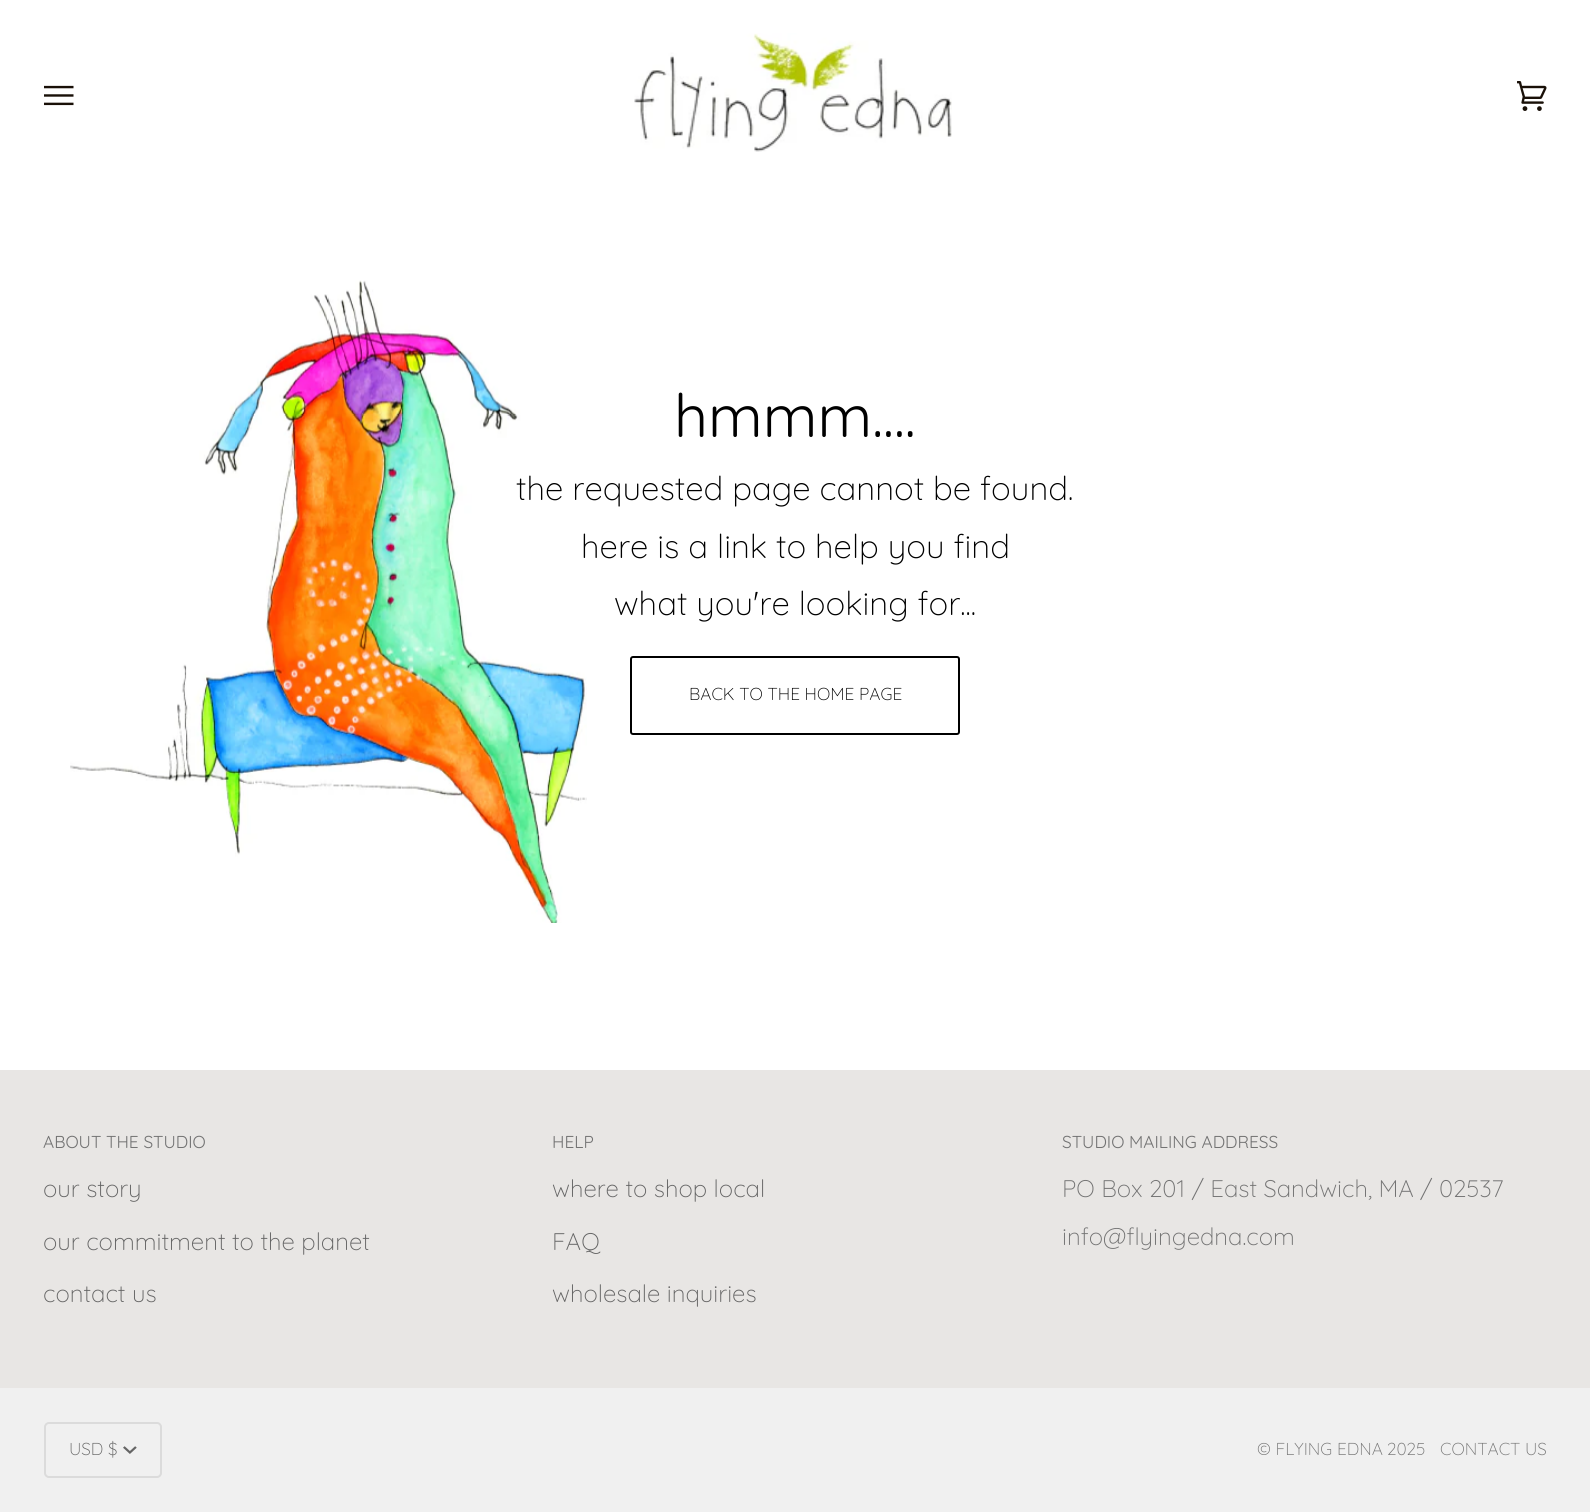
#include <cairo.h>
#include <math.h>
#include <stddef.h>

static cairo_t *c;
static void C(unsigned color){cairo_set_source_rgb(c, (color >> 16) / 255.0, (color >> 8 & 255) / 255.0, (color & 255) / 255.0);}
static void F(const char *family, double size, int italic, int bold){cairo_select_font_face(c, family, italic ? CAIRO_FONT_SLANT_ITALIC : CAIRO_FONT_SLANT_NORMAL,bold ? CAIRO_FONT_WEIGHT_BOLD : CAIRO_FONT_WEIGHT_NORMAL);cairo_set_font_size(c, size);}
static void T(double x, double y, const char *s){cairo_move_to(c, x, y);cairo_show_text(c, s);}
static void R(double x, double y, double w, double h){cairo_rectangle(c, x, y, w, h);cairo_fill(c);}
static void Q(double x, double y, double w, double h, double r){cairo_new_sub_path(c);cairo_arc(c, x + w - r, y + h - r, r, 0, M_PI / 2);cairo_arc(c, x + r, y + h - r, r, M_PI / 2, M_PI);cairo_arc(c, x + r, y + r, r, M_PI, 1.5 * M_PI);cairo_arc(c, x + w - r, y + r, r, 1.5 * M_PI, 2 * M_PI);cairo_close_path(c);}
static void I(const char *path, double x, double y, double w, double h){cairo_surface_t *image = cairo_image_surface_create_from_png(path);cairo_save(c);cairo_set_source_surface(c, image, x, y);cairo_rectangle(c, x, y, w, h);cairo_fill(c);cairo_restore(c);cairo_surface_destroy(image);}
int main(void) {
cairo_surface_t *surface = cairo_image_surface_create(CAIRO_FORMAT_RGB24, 1590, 1512);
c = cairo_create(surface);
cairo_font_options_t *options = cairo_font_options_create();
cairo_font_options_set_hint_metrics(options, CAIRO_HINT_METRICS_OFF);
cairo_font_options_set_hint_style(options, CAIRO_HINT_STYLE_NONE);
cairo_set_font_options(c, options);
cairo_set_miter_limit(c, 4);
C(0xffffff);
cairo_paint(c);
I("1.png",44,85,30,21);
I("2.png",634,33,318,119);
I("3.png",1517,81,30,30);
I("4.png",70,280,517,643);
F("Quicksand",60,0,0);
C(0x000000);
T(674,437,"hmmm....");
F("Quicksand Light",33,0,0);
T(516,500,"the requested page cannot be found.");
T(581,558,"here is a link to help you find");
T(614,615,"what you're looking for...");
Q(631,657,328,77,2);
cairo_stroke(c);
F("Quicksand Light",17.25,0,0);
T(689,700,"BACK TO THE HOME PAGE");
C(0xe8e6e4);
R(0,1070,1590,318);
F("Quicksand",17.25,0,0);
C(0x737373);
T(43,1148,"ABOUT THE STUDIO");
F("Quicksand Light",24,0,0);
C(0x656565);
T(43,1197,"our story");
T(43,1250,"our commitment to the planet");
T(43,1302,"contact us");
F("Quicksand",17.25,0,0);
C(0x737373);
T(552,1148,"HELP");
F("Quicksand Light",24,0,0);
C(0x656565);
T(552,1197,"where to shop local");
T(552,1250,"FAQ");
T(552,1302,"wholesale inquiries");
F("Quicksand",17.25,0,0);
C(0x737373);
T(1062,1148,"STUDIO MAILING ADDRESS");
F("Quicksand Light",24,0,0);
T(1062,1197,"PO Box 201 / East Sandwich, MA / 02537");
T(1062,1245,"info@flyingedna.com");
C(0xf0f0f0);
R(0,1388,1590,124);
Q(45,1423,116,54,4);
C(0xdbdbdb);
cairo_stroke(c);
F("Quicksand Light",17.25,0,0);
C(0x656565);
T(69,1455,"USD $");
I("5.png",123,1446,14,8);
C(0x737373);
T(1257,1455,"© FLYING EDNA");
T(1387,1455,"2025");
T(1440,1455,"CONTACT US");
cairo_surface_write_to_png(surface, "o.png");
cairo_font_options_destroy(options);
cairo_destroy(c);
cairo_surface_destroy(surface);
return 0;
}
